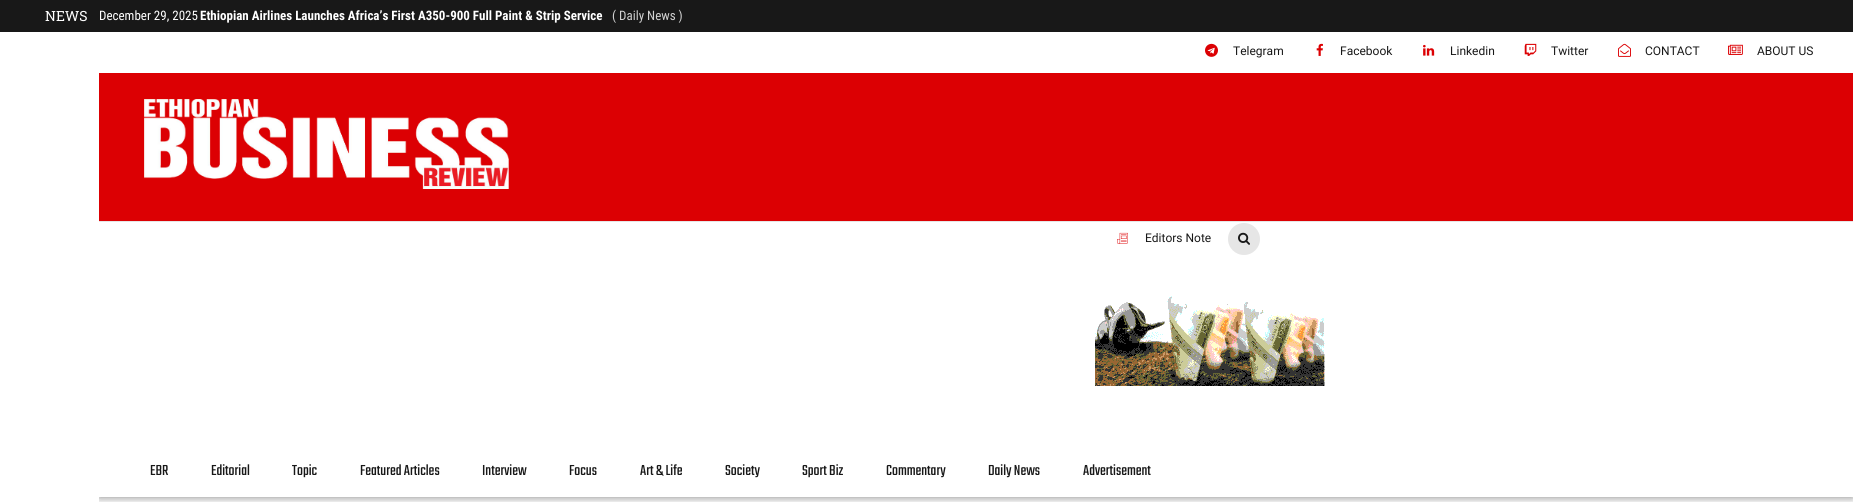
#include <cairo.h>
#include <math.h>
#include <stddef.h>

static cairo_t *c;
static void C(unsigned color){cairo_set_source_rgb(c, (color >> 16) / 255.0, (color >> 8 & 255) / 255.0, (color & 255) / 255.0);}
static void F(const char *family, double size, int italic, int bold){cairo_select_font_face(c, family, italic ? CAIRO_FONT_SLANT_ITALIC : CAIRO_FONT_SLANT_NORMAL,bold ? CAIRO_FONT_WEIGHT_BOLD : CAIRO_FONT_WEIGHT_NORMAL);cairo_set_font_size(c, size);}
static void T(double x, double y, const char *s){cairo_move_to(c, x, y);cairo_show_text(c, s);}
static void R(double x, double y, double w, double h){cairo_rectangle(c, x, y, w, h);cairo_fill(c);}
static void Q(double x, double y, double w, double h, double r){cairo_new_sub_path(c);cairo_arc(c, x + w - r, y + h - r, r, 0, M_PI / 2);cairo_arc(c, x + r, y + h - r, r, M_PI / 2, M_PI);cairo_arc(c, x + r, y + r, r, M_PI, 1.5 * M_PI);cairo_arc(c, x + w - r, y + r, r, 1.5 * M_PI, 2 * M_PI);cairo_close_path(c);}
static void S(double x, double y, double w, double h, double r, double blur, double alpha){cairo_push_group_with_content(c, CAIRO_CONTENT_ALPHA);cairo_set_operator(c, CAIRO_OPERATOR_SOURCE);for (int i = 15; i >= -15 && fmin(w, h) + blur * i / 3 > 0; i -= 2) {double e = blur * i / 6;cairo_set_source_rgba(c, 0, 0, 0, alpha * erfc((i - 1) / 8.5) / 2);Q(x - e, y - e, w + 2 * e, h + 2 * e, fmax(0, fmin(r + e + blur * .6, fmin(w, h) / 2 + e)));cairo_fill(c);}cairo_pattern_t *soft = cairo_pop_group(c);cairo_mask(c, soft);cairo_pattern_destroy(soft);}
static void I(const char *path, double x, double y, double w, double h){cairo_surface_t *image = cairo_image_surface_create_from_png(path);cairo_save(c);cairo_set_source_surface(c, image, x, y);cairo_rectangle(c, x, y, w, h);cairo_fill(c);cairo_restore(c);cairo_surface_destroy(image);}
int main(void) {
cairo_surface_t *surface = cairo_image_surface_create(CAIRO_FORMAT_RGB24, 1853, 502);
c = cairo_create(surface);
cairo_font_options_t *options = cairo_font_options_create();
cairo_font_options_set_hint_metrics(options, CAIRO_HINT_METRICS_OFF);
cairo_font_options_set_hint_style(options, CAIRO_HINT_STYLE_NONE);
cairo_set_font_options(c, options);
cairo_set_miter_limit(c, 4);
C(0xffffff);
cairo_paint(c);
C(0x181818);
R(0,0,1853,32);
F("Roboto Slab",14,0,0);
C(0xffffff);
T(45,21,"NEWS");
F("Roboto Condensed",13,0,0);
T(99,20,"December 29, 2025");
F("Roboto Condensed",13,0,1);
T(200,20,"Ethiopian Airlines Launches Africa’s First A350-900 Full Paint & Strip Service");
F("Roboto Condensed",13,0,0);
C(0xd1d1d1);
T(612,20,"( Daily News )");
cairo_save(c);
cairo_rectangle(c,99,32,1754,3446);
cairo_clip(c);
C(0x000000);
S(99,32,1754,465,0,5,.5);
cairo_restore(c);
C(0xdc0003);
R(99,73,1754,148);
C(0xffffff);
R(99,32,1754,41);
I("1.png",1205,43,13,14);
F("Roboto",12,0,0);
C(0x181818);
T(1233,55,"Telegram");
I("2.png",1316,43,7,13);
T(1340,55,"Facebook");
I("3.png",1423,44,12,12);
T(1450,55,"Linkedin");
I("4.png",1524,43,13,13);
T(1551,55,"Twitter");
I("5.png",1618,43,13,14);
T(1645,55,"CONTACT");
I("6.png",1728,44,15,11);
T(1757,55,"ABOUT US");
I("7.png",144,99,365,90);
C(0xffffff);
R(99,222,1754,275);
C(0xe6e6e6);
R(99,221,1754,1);
I("8.png",1117,232,11,12);
C(0x181818);
T(1145,242,"Editors Note");
C(0xe6e6e6);
cairo_new_path(c);
cairo_arc(c,1244,239,16,0,2 * M_PI);
cairo_fill(c);
I("9.png",1238,232,12,13);
I("10.png",1095,296,230,90);
F("Teko",16,0,0);
C(0x181818);
T(150,475,"EBR");
T(211,475,"Editorial");
T(292,475,"Topic");
T(360,475,"Featured Articles");
T(482,475,"Interview");
T(569,475,"Focus");
T(640,475,"Art & Life");
T(725,475,"Society");
T(802,475,"Sport Biz");
T(886,475,"Commentary");
T(988,475,"Daily News");
T(1083,475,"Advertisement");
cairo_surface_write_to_png(surface, "o.png");
cairo_font_options_destroy(options);
cairo_destroy(c);
cairo_surface_destroy(surface);
return 0;
}
